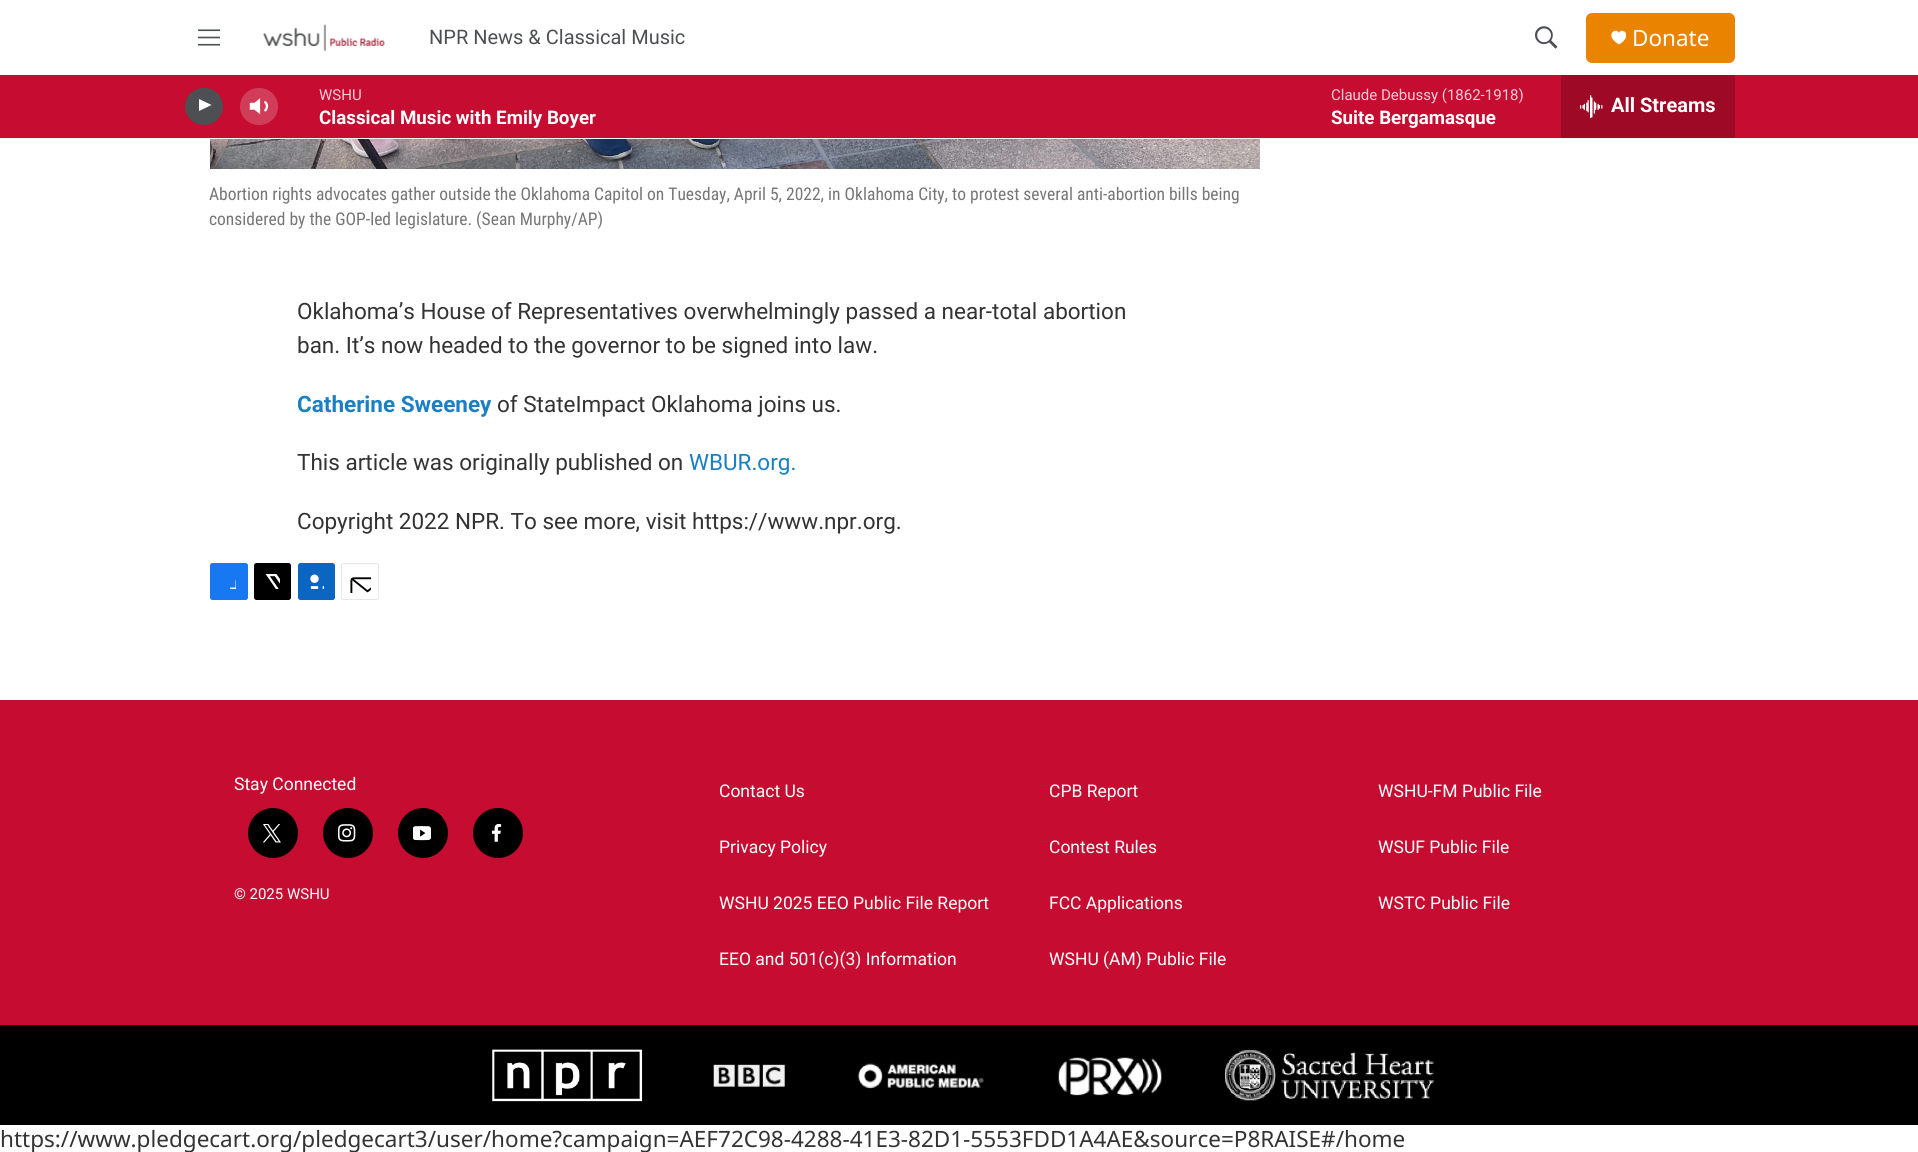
#include <cairo.h>
#include <math.h>
#include <stddef.h>

static cairo_t *c;
static void C(unsigned color){cairo_set_source_rgb(c, (color >> 16) / 255.0, (color >> 8 & 255) / 255.0, (color & 255) / 255.0);}
static void F(const char *family, double size, int italic, int bold){cairo_select_font_face(c, family, italic ? CAIRO_FONT_SLANT_ITALIC : CAIRO_FONT_SLANT_NORMAL,bold ? CAIRO_FONT_WEIGHT_BOLD : CAIRO_FONT_WEIGHT_NORMAL);cairo_set_font_size(c, size);}
static void T(double x, double y, const char *s){cairo_move_to(c, x, y);cairo_show_text(c, s);}
static void R(double x, double y, double w, double h){cairo_rectangle(c, x, y, w, h);cairo_fill(c);}
static void Q(double x, double y, double w, double h, double r){cairo_new_sub_path(c);cairo_arc(c, x + w - r, y + h - r, r, 0, M_PI / 2);cairo_arc(c, x + r, y + h - r, r, M_PI / 2, M_PI);cairo_arc(c, x + r, y + r, r, M_PI, 1.5 * M_PI);cairo_arc(c, x + w - r, y + r, r, 1.5 * M_PI, 2 * M_PI);cairo_close_path(c);}
static void I(const char *path, double x, double y, double w, double h){cairo_surface_t *image = cairo_image_surface_create_from_png(path);cairo_save(c);cairo_set_source_surface(c, image, x, y);cairo_rectangle(c, x, y, w, h);cairo_fill(c);cairo_restore(c);cairo_surface_destroy(image);}
int main(void) {
cairo_surface_t *surface = cairo_image_surface_create(CAIRO_FORMAT_RGB24, 1918, 1152);
c = cairo_create(surface);
cairo_font_options_t *options = cairo_font_options_create();
cairo_font_options_set_hint_metrics(options, CAIRO_HINT_METRICS_OFF);
cairo_font_options_set_hint_style(options, CAIRO_HINT_STYLE_NONE);
cairo_set_font_options(c, options);
cairo_set_miter_limit(c, 4);
C(0xffffff);
cairo_paint(c);
C(0xf5f5f5);
R(0,138,1918,1);
I("1.png",198,29,22,17);
I("2.png",263,24,122,27);
F("Roboto",20,0,0);
C(0x4d4f53);
T(429,44,"NPR News & Classical Music");
I("3.png",1535,26,23,23);
C(0xe98300);
Q(1586,13,149,50,6);
cairo_fill(c);
cairo_save(c);
cairo_rectangle(c,1611,30,15,15);
cairo_clip(c);
C(0xffffff);
cairo_new_path(c);
cairo_move_to(c,1619,33);
cairo_curve_to(c,1616.5,26.5,1603,35,1619,44.5);
cairo_curve_to(c,1634.5,35,1621,26.5,1619,33);
cairo_close_path(c);
cairo_fill(c);
cairo_restore(c);
F("Noto Sans",22.5,0,0);
C(0xffffff);
T(1632,46,"Donate");
C(0xc60c30);
R(0,75,1918,63);
C(0x4d4f53);
Q(185,88,38,37,18.5);
cairo_fill(c);
C(0xffffff);
cairo_new_path(c);
cairo_move_to(c,199,99);
cairo_line_to(c,211.5,105);
cairo_line_to(c,199,111);
cairo_close_path(c);
cairo_fill(c);
I("4.png",249,98,20,17);
cairo_set_source_rgba(c,1,1,1,0.2);
Q(240,88,38,37,18.5);
cairo_fill(c);
F("Roboto",15,0,0);
C(0xf4ced6);
T(319,100,"WSHU");
F("Roboto",18.75,0,1);
C(0xffffff);
T(319,124,"Classical Music with Emily Boyer");
F("Roboto",15,0,0);
C(0xf4ced6);
T(1331,100,"Claude Debussy (1862-1918)");
F("Roboto",18.75,0,1);
C(0xffffff);
T(1331,124,"Suite Bergamasque");
C(0x9e0a26);
R(1561,75,174,63);
I("5.png",1580,95,23,23);
F("Roboto",20,0,1);
C(0xffffff);
T(1611,112,"All Streams");
I("6.png",210,139,1050,30);
F("Roboto Condensed",17.5,0,0);
C(0x767676);
T(209,200,"Abortion rights advocates gather outside the Oklahoma Capitol on Tuesday, April 5, 2022, in Oklahoma City, to protest several anti-abortion bills being");
T(209,225,"considered by the GOP-led legislature. (Sean Murphy/AP)");
F("Roboto",22.5,0,0);
C(0x333333);
T(297,319,"Oklahoma’s House of Representatives overwhelmingly passed a near-total abortion");
T(297,353,"ban. It’s now headed to the governor to be signed into law.");
F("Roboto",22.5,0,1);
C(0x1a7fc3);
T(297,412,"Catherine Sweeney");
F("Roboto",22.5,0,0);
C(0x333333);
T(497,412,"of StateImpact Oklahoma joins us.");
T(297,470,"This article was originally published on");
C(0x1a7fc3);
T(689,470,"WBUR.org.");
C(0x333333);
T(297,529,"Copyright 2022 NPR. To see more, visit https://www.npr.org.");
C(0x1778f2);
Q(210,563,38,37,2.5);
cairo_fill(c);
I("7.png",230,579,6,10);
C(0x000000);
Q(254,563,37,37,2.5);
cairo_fill(c);
I("8.png",265,574,15,15);
C(0x0a66c1);
Q(298,563,37,37,2.5);
cairo_fill(c);
I("9.png",310,574,14,15);
Q(341.5,563.5,37,36,2);
C(0xe6e6e6);
cairo_set_line_width(c,1);
cairo_stroke(c);
I("10.png",350,577,21,16);
C(0xc60c30);
R(0,700,1918,325);
F("Roboto",17.5,0,0);
C(0xffffff);
T(234,790,"Stay Connected");
C(0x000000);
cairo_new_path(c);
cairo_arc(c,273,833,25,0,2 * M_PI);
cairo_fill(c);
I("11.png",263,824,18,19);
cairo_arc(c,348,833,25,0,2 * M_PI);
cairo_fill(c);
I("12.png",338,824,18,18);
cairo_arc(c,423,833,25,0,2 * M_PI);
cairo_fill(c);
I("13.png",413,826,18,15);
cairo_arc(c,498,833,25,0,2 * M_PI);
cairo_fill(c);
I("14.png",491,824,11,18);
F("Roboto",15,0,0);
C(0xffffff);
T(234,899,"© 2025 WSHU");
F("Roboto",17.5,0,0);
T(719,797,"Contact Us");
T(1049,797,"CPB Report");
T(1378,797,"WSHU-FM Public File");
T(719,853,"Privacy Policy");
T(1049,853,"Contest Rules");
T(1378,853,"WSUF Public File");
T(719,909,"WSHU 2025 EEO Public File Report");
T(1049,909,"FCC Applications");
T(1378,909,"WSTC Public File");
T(719,965,"EEO and 501(c)(3) Information");
T(1049,965,"WSHU (AM) Public File");
C(0x000000);
R(0,1025,1918,100);
I("15.png",492,1049,151,53);
I("16.png",713,1064,72,23);
I("17.png",857,1063,127,26);
I("18.png",1058,1057,104,39);
I("19.png",1225,1050,209,51);
F("Noto Sans",22.5,0,0);
C(0x333333);
T(0,1147,"https://www.pledgecart.org/pledgecart3/user/home?campaign=AEF72C98-4288-41E3-82D1-5553FDD1A4AE&source=P8RAISE#/home");
cairo_surface_write_to_png(surface, "o.png");
cairo_font_options_destroy(options);
cairo_destroy(c);
cairo_surface_destroy(surface);
return 0;
}
